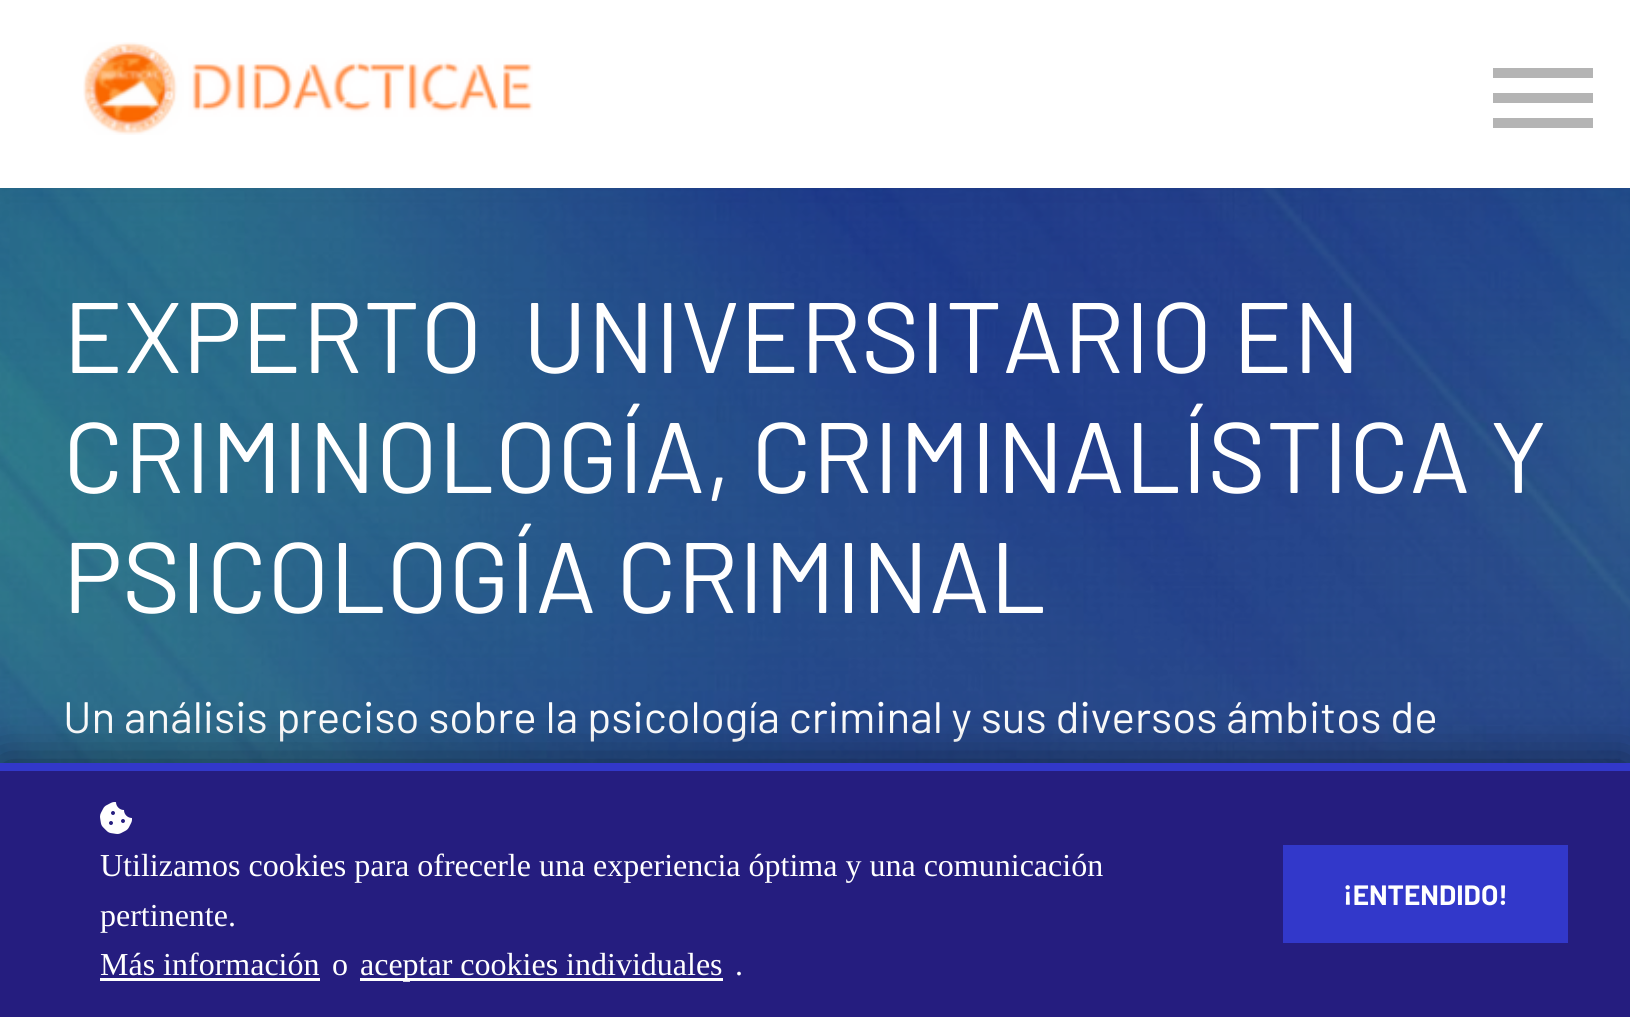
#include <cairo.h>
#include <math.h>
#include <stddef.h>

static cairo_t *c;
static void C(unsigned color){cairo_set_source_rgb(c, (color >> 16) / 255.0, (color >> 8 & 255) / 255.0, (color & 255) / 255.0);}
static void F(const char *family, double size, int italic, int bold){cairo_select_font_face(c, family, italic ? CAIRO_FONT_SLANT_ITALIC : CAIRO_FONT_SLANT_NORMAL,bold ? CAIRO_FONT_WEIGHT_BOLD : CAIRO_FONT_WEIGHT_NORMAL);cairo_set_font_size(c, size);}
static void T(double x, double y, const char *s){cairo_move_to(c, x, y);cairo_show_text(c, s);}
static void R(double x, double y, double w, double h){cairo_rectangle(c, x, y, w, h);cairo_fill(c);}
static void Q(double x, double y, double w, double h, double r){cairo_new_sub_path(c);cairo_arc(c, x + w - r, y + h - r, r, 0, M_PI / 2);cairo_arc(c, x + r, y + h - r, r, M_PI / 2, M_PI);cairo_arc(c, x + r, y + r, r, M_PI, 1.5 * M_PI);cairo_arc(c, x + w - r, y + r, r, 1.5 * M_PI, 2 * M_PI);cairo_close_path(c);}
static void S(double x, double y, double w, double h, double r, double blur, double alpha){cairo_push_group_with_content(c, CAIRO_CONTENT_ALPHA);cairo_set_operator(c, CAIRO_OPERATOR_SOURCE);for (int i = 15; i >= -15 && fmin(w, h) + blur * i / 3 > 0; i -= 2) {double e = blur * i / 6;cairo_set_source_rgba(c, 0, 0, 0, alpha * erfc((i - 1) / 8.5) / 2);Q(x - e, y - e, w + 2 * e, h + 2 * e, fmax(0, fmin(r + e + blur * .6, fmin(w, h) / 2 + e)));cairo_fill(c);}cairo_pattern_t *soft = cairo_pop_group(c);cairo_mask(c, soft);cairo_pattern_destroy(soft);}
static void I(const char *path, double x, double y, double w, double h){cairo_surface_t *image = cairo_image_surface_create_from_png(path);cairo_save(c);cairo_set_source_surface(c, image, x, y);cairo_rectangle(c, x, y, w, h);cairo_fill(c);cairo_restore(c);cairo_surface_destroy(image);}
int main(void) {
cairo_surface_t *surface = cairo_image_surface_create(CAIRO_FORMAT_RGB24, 1630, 1017);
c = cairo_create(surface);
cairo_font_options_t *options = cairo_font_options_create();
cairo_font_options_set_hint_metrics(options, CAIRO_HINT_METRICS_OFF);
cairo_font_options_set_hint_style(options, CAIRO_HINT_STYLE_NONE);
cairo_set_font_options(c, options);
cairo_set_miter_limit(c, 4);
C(0xffffff);
cairo_paint(c);
I("2.png",0,188,1630,575);
C(0x000000);
S(0,0,1630,188,0,19,.05);
C(0xffffff);
R(0,0,1630,188);
I("1.png",83,42,450,93);
C(0xb4b4b4);
R(1493,118,100,10);
R(1493,68,100,10);
R(1493,93,100,10);
F("Barlow",100,0,0);
C(0xffffff);
T(63,373,"EXPERTO  UNIVERSITARIO EN");
T(63,493,"CRIMINOLOGÍA, CRIMINALÍSTICA Y");
T(63,613,"PSICOLOGÍA CRIMINAL");
F("Barlow",44,0,0);
T(63,733,"Un análisis preciso sobre la psicología criminal y sus diversos ámbitos de");
C(0x000000);
S(0,763,1630,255,0,25,.5);
C(0x251d7f);
R(0,771,1630,246);
C(0x3238ca);
R(0,763,1630,8);
I("3.png",100,802,32,32);
F("Liberation Serif",32,0,0);
C(0xffffff);
T(100,876,"Utilizamos cookies para ofrecerle una experiencia óptima y una comunicación");
T(100,926,"pertinente.");
T(100,975,"Más información");
R(100,978,220,3);
T(332,975,"o");
R(360,978,363,3);
T(360,975,"aceptar cookies individuales");
T(735,975,".");
C(0x3238ca);
R(1283,845,285,98);
F("Barlow",28,0,1);
C(0xffffff);
T(1343,905,"¡ENTENDIDO!");
cairo_surface_write_to_png(surface, "o.png");
cairo_font_options_destroy(options);
cairo_destroy(c);
cairo_surface_destroy(surface);
return 0;
}
